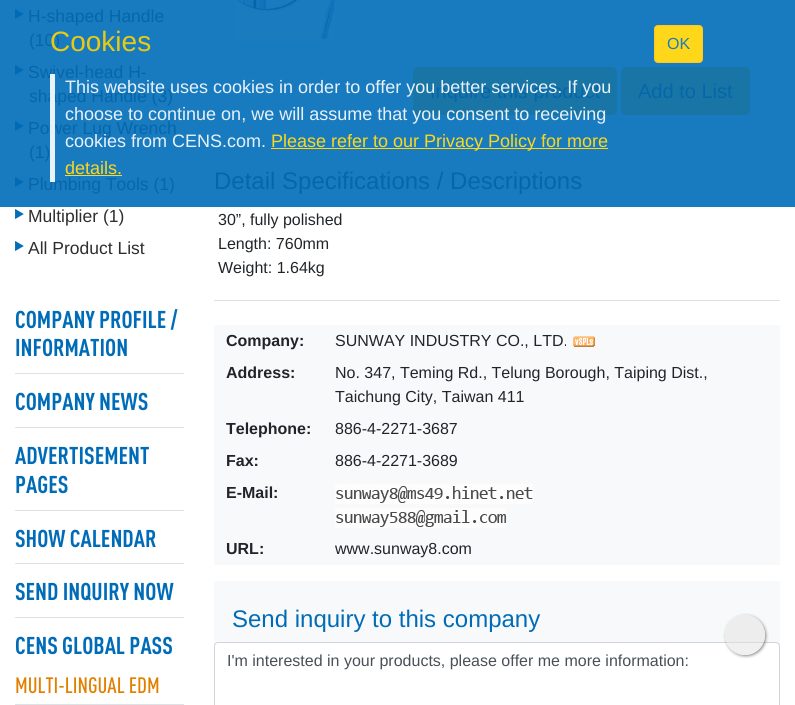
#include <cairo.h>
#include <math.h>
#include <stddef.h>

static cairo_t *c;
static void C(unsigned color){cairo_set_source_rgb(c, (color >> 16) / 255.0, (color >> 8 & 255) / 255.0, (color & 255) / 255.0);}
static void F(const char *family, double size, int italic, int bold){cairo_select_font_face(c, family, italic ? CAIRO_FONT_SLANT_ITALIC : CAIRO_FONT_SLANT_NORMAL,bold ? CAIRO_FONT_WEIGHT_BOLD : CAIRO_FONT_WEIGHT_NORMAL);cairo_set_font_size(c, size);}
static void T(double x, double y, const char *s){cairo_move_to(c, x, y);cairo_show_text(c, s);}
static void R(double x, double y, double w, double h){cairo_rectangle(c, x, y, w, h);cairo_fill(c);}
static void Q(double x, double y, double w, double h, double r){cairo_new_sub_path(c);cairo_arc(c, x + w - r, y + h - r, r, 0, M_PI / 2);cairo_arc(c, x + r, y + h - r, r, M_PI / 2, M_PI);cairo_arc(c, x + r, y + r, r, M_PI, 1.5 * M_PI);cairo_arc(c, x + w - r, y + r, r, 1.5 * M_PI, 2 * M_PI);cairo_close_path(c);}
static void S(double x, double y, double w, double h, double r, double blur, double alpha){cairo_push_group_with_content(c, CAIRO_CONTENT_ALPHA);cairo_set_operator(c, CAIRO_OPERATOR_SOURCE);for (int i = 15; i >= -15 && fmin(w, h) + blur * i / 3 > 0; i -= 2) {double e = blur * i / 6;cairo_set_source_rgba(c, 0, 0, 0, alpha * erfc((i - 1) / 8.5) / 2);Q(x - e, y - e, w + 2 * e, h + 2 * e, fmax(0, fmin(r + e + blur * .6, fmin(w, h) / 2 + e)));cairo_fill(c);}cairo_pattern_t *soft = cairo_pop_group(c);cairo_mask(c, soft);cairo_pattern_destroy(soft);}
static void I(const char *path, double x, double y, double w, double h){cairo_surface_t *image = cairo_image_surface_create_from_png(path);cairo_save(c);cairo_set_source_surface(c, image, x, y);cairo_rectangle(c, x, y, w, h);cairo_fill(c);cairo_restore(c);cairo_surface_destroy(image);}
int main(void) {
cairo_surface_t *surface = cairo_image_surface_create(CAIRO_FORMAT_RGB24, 795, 705);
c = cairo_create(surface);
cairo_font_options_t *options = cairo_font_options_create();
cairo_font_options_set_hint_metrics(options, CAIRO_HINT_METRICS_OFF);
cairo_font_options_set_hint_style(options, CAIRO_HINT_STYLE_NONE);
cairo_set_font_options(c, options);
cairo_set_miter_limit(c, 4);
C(0xffffff);
cairo_paint(c);
C(0x197bbf);
R(0,0,795,207);
I("1.png",15,9,9,10);
F("Liberation Sans",17.5,0,0);
C(0x0566aa);
T(28,22,"H-shaped Handle");
T(29,46,"(10)");
I("1.png",15,65,9,10);
T(28,78,"Swivel-head H-");
T(29,102,"shaped Handle (3)");
I("1.png",15,121,9,10);
T(28,134,"Power Lug Wrench");
T(29,158,"(1)");
I("1.png",15,177,9,10);
T(28,190,"Plumbing Tools (1)");
I("2.png",15,209,9,10);
C(0x2e2e2e);
T(28,222,"Multiplier (1)");
I("2.png",15,241,9,10);
T(28,254,"All Product List");
C(0xdee2e6);
R(15,373,169,1);
F("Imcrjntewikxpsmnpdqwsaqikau",24,0,1);
C(0x006cb8);
T(15,328,"COMPANY PROFILE /");
T(15,356,"INFORMATION");
C(0xdee2e6);
R(15,427,169,1);
C(0x006cb8);
T(15,410,"COMPANY NEWS");
C(0xdee2e6);
R(15,510,169,1);
C(0x006cb8);
T(15,464,"ADVERTISEMENT");
T(15,493,"PAGES");
C(0xdee2e6);
R(15,563,169,1);
C(0x006cb8);
T(15,547,"SHOW CALENDAR");
C(0xdee2e6);
R(15,617,169,1);
C(0x006cb8);
T(15,600,"SEND INQUIRY NOW");
C(0xdee2e6);
R(15,704,169,1);
C(0x006cb8);
T(15,654,"CENS GLOBAL PASS");
F("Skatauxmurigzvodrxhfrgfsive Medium",22,0,0);
C(0xe07f00);
T(15,693,"MULTI-LINGUAL EDM");
I("3.png",236,0,99,40);
C(0x1975a6);
Q(413.5,67.5,203,47,4.5);
cairo_fill_preserve(c);
cairo_set_line_width(c,1);
cairo_stroke(c);
F("Liberation Sans",20,0,0);
C(0x0566aa);
T(430,98,"Inquire this product");
C(0x1975a6);
Q(621.5,67.5,128,47,4.5);
cairo_fill_preserve(c);
cairo_stroke(c);
C(0x0566aa);
T(638,98,"Add to List");
C(0xdee2e6);
R(214,300,566,1);
F("Liberation Sans",24,0,0);
C(0x0566aa);
T(214,189,"Detail Specifications / Descriptions");
F("Liberation Sans",16,0,0);
C(0x212529);
T(218,225,"30”, fully polished");
T(218,249,"Length: 760mm");
T(218,273,"Weight: 1.64kg");
C(0xf8f9fa);
R(214,325,566,240);
F("Liberation Sans",16,0,1);
C(0x212529);
T(226,346,"Company:");
F("Liberation Sans",16,0,0);
T(335,346,"SUNWAY INDUSTRY CO., LTD.");
I("4.png",573,336,22,11);
F("Liberation Sans",16,0,1);
T(226,378,"Address:");
F("Liberation Sans",16,0,0);
T(335,378,"No. 347, Teming Rd., Telung Borough, Taiping Dist.,");
T(335,402,"Taichung City, Taiwan 411");
F("Liberation Sans",16,0,1);
T(226,434,"Telephone:");
F("Liberation Sans",16,0,0);
T(335,434,"886-4-2271-3687");
F("Liberation Sans",16,0,1);
T(226,466,"Fax:");
F("Liberation Sans",16,0,0);
T(335,466,"886-4-2271-3689");
F("Liberation Sans",16,0,1);
T(226,498,"E-Mail:");
I("5.png",335,484,9,20);
I("6.png",344,484,9,20);
I("7.png",353,484,9,20);
I("8.png",362,484,9,20);
I("9.png",371,484,9,20);
I("10.png",380,484,9,20);
I("11.png",389,484,9,20);
I("12.png",398,484,9,20);
I("13.png",407,484,9,20);
I("5.png",416,484,9,20);
I("14.png",425,484,9,20);
I("15.png",434,484,9,20);
I("16.png",443,484,9,20);
I("17.png",452,484,9,20);
I("18.png",461,484,9,20);
I("7.png",470,484,9,20);
I("19.png",479,484,9,20);
I("20.png",488,484,9,20);
I("16.png",497,484,9,20);
I("7.png",506,484,9,20);
I("19.png",515,484,9,20);
I("20.png",524,484,9,20);
I("5.png",335,508,9,20);
I("6.png",344,508,9,20);
I("7.png",353,508,9,20);
I("8.png",362,508,9,20);
I("9.png",371,508,9,20);
I("10.png",380,508,9,20);
I("21.png",389,508,9,20);
I("11.png",398,508,9,20);
I("11.png",407,508,9,20);
I("12.png",416,508,9,20);
I("22.png",425,508,9,20);
I("13.png",434,508,9,20);
I("9.png",443,508,9,20);
I("18.png",452,508,9,20);
I("23.png",461,508,9,20);
I("16.png",470,508,9,20);
I("24.png",479,508,9,20);
I("25.png",488,508,9,20);
I("13.png",497,508,9,20);
T(226,554,"URL:");
F("Liberation Sans",16,0,0);
T(335,554,"www.sunway8.com");
C(0xf8f9fa);
R(214,581,566,65);
F("Liberation Sans",24,0,0);
C(0x006cb8);
T(232,627,"Send inquiry to this company");
C(0xffffff);
Q(215,643,564,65,3);
cairo_fill(c);
Q(214.5,642.5,565,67,3.5);
C(0xced4da);
cairo_stroke(c);
F("Liberation Sans",16,0,0);
C(0x495057);
T(227,666,"I'm interested in your products, please offer me more information:");
F("Liberation Sans",28,0,0);
C(0xe8c913);
T(50,51,"Cookies");
cairo_set_source_rgba(c,1,1,1,0.9);
R(50,74,5,108);
F("Liberation Sans",18,0,0);
C(0xe8f1f8);
T(65,93,"This website uses cookies in order to offer you better services. If you");
T(65,120,"choose to continue on, we will assume that you consent to receiving");
T(65,147,"cookies from CENS.com.");
C(0xffd71a);
R(271,148,337,1);
T(271,147,"Please refer to our Privacy Policy for more");
T(65,174,"details.");
R(65,175,57,1);
Q(654.5,25.5,48,37,3.5);
cairo_fill_preserve(c);
C(0xffc720);
cairo_stroke(c);
F("Liberation Sans",16,0,0);
C(0x1a7bbf);
T(667,49,"OK");
cairo_save(c);
cairo_set_fill_rule(c,CAIRO_FILL_RULE_EVEN_ODD);
cairo_new_path(c);
cairo_move_to(c,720,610);
cairo_line_to(c,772,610);
cairo_line_to(c,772,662);
cairo_line_to(c,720,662);
cairo_close_path(c);
cairo_move_to(c,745,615);
cairo_curve_to(c,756,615,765,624,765,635);
cairo_curve_to(c,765,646,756,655,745,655);
cairo_curve_to(c,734,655,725,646,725,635);
cairo_curve_to(c,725,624,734,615,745,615);
cairo_close_path(c);
cairo_clip(c);
C(0x888888);
S(726,616,40,40,20,1.5,1);
cairo_restore(c);
cairo_set_source_rgba(c,0.886,0.886,0.886,0.5);
cairo_arc(c,745,635,20,0,2 * M_PI);
cairo_fill(c);
cairo_surface_write_to_png(surface, "o.png");
cairo_font_options_destroy(options);
cairo_destroy(c);
cairo_surface_destroy(surface);
return 0;
}
